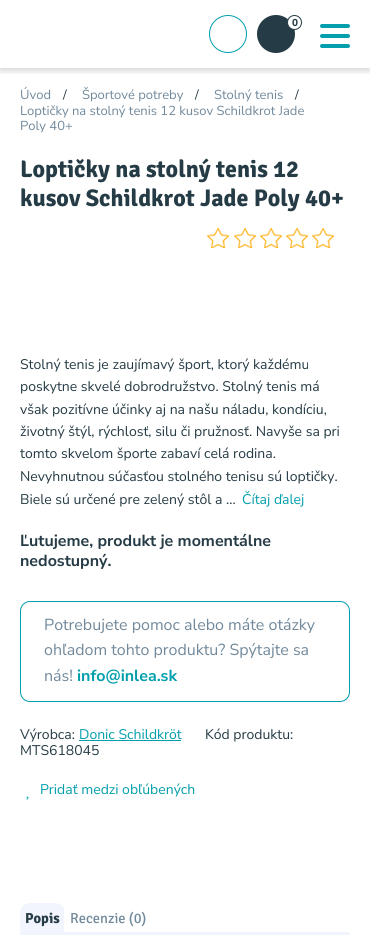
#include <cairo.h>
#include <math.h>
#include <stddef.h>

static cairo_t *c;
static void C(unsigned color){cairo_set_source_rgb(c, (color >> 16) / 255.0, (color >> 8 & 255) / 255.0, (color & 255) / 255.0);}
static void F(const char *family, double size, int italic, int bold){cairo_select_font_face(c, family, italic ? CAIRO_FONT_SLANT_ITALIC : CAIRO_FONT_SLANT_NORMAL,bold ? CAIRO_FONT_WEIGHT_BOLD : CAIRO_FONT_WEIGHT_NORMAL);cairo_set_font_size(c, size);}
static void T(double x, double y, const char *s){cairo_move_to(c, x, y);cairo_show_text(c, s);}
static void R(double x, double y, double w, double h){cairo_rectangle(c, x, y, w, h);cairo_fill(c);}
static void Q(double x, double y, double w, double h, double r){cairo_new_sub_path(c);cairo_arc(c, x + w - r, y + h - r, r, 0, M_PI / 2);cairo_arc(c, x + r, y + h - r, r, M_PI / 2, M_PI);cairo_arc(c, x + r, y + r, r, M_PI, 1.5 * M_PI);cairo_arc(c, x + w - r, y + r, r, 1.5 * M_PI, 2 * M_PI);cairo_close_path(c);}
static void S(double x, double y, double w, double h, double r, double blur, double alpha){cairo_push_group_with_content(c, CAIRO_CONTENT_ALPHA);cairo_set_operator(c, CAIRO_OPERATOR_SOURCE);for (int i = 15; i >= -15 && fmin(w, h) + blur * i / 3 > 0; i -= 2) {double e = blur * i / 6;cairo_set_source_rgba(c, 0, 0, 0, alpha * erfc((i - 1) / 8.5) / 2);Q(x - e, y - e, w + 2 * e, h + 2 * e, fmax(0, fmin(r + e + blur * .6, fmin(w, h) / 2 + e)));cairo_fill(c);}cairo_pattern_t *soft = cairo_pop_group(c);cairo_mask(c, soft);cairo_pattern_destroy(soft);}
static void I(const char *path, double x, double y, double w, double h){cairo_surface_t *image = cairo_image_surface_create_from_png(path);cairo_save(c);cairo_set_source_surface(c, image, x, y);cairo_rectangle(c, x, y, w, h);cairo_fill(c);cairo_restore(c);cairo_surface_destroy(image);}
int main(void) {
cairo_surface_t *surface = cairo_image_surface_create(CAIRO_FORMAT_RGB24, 370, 935);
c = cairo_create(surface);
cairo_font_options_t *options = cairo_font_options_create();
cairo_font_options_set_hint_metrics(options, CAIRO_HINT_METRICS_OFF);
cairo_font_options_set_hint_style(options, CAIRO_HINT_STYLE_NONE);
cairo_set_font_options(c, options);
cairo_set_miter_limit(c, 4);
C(0xffffff);
cairo_paint(c);
cairo_save(c);
cairo_rectangle(c,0,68,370,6);
cairo_clip(c);
C(0x000000);
S(0,3,370,68,0,3,.16);
cairo_restore(c);
cairo_arc(c,228,34,18.5,0,2 * M_PI);
C(0x019eac);
cairo_set_line_width(c,1);
cairo_stroke(c);
C(0x253b45);
cairo_arc(c,276,34,19,0,2 * M_PI);
cairo_fill(c);
C(0xffffff);
cairo_arc(c,294.5,22.5,7,0,2 * M_PI);
cairo_fill_preserve(c);
C(0x253b45);
cairo_stroke(c);
F("Nunito Sans ExtraBold",10,0,0);
T(292,26,"0");
C(0x059eac);
Q(320,24,30,4,2);
cairo_fill(c);
Q(320,34,30,4,2);
cairo_fill(c);
Q(320,44,30,4,2);
cairo_fill(c);
F("Nunito Sans",13,0,0);
C(0x71899b);
T(20,99,"Úvod");
C(0x253b45);
T(63,99,"/");
C(0x71899b);
T(82,99,"Športové potreby");
C(0x253b45);
T(195,99,"/");
C(0x71899b);
T(214,99,"Stolný tenis");
C(0x253b45);
T(295,99,"/");
C(0x71899b);
T(20,115,"Loptičky na stolný tenis 12 kusov Schildkrot Jade");
T(20,130,"Poly 40+");
F("Signika",24,0,1);
C(0x253b45);
T(20,177,"Loptičky na stolný tenis 12");
T(20,206,"kusov Schildkrot Jade Poly 40+");
I("1.png",207,228,22,20);
I("1.png",234,228,22,20);
I("1.png",260,228,22,20);
I("1.png",286,228,22,20);
I("1.png",312,228,22,20);
F("Nunito Sans",14,0,0);
T(20,369,"Stolný tenis je zaujímavý šport, ktorý každému");
T(20,391,"poskytne skvelé dobrodružstvo. Stolný tenis má");
T(20,414,"však pozitívne účinky aj na našu náladu, kondíciu,");
T(20,436,"životný štýl, rýchlosť, silu či pružnosť. Navyše sa pri");
T(20,458,"tomto skvelom športe zabaví celá rodina.");
T(20,481,"Nevyhnutnou súčasťou stolného tenisu sú loptičky.");
T(20,504,"Biele sú určené pre zelený stôl a ...");
C(0x019eac);
T(242,504,"Čítaj ďalej");
F("Nunito Sans",16,0,1);
C(0x253b45);
T(20,546,"Ľutujeme, produkt je momentálne");
T(20,566,"nedostupný.");
Q(20.5,601.5,329,100,9.5);
C(0x019eac);
cairo_stroke(c);
F("Nunito Sans",16,0,0);
C(0x71899b);
T(44,630,"Potrebujete pomoc alebo máte otázky");
T(44,655,"ohľadom tohto produktu? Spýtajte sa");
T(44,681,"nás!");
F("Nunito Sans",16,0,1);
C(0x019eac);
T(77,681,"info@inlea.sk");
F("Nunito Sans",14,0,0);
C(0x253b45);
T(20,739,"Výrobca:");
C(0x019eac);
T(79,739,"Donic Schildkröt");
R(79,740,102,1);
C(0x253b45);
T(205,739,"Kód produktu:");
T(20,755,"MTS618045");
C(0x019eac);
T(40,794,"Pridať medzi obľúbených");
I("2.png",26,796,3,4);
C(0xf2f5fd);
R(20,932,330,3);
cairo_save(c);
cairo_new_path(c);
cairo_move_to(c,30,903);
cairo_line_to(c,55,903);
cairo_curve_to(c,60.5,903,65,907.5,65,913);
cairo_line_to(c,65,932);
cairo_line_to(c,20,932);
cairo_line_to(c,20,913);
cairo_curve_to(c,20,907.5,24.5,903,30,903);
cairo_close_path(c);
cairo_clip(c);
cairo_new_path(c);
cairo_move_to(c,30,903);
cairo_line_to(c,64,903);
cairo_line_to(c,64,932);
cairo_line_to(c,20,932);
cairo_line_to(c,20,913);
cairo_curve_to(c,20,907.5,24.5,903,30,903);
cairo_close_path(c);
cairo_fill(c);
cairo_restore(c);
F("Signika",14.5,0,1);
C(0x253b45);
T(25,923,"Popis");
F("Signika",14.5,0,0);
C(0x71899b);
T(70,923,"Recenzie (0)");
cairo_surface_write_to_png(surface, "o.png");
cairo_font_options_destroy(options);
cairo_destroy(c);
cairo_surface_destroy(surface);
return 0;
}
